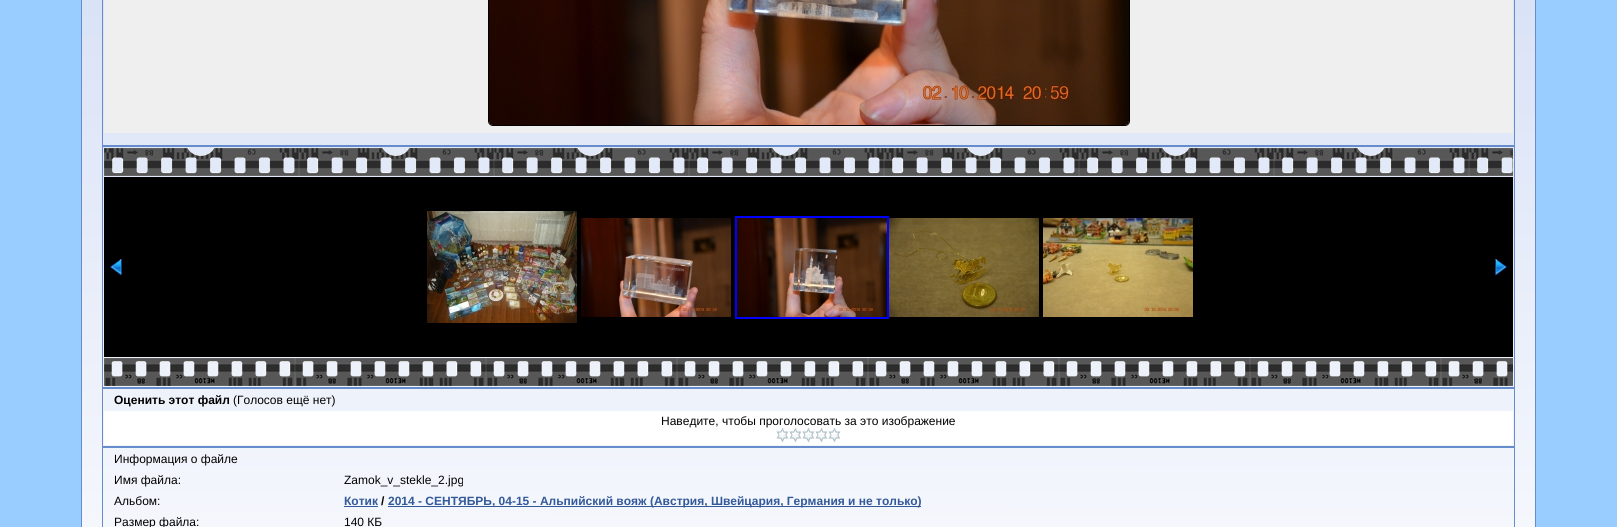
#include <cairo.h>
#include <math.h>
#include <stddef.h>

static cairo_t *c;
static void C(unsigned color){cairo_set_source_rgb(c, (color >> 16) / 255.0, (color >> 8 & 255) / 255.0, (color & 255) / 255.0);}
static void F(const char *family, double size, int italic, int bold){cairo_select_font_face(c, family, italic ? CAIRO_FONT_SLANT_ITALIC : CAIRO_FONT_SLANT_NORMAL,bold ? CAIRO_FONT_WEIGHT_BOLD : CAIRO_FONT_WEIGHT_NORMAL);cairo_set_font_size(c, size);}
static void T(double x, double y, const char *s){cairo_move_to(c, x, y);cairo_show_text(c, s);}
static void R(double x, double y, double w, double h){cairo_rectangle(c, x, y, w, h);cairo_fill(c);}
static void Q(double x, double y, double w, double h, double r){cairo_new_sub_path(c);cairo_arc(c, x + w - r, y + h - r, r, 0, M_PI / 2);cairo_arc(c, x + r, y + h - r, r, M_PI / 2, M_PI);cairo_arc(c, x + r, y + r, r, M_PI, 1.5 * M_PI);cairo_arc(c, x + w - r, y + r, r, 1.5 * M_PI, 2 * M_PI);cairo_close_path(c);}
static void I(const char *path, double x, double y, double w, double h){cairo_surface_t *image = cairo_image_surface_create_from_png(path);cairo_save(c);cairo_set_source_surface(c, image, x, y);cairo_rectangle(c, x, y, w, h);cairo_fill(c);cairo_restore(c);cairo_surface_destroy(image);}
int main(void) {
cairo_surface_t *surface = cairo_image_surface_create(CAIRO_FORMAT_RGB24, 1617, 527);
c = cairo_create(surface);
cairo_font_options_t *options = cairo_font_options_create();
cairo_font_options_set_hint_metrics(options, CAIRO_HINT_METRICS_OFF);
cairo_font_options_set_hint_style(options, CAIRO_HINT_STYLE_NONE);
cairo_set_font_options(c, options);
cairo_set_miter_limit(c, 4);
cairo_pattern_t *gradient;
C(0x99ccff);
cairo_paint(c);
gradient = cairo_pattern_create_linear(808,-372,809,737);
cairo_pattern_add_color_stop_rgba(gradient,0,0.78,0.831,0.945,1);
cairo_pattern_add_color_stop_rgba(gradient,1,1,1,1,1);
cairo_set_source(c,gradient);
cairo_pattern_destroy(gradient);
R(82,0,1453,527);
C(0x668ccc);
R(1535,0,1,527);
R(81,0,1,527);
cairo_rectangle(c,102.5,-.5,1412,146);
cairo_set_line_width(c,1);
cairo_stroke(c);
C(0xefefef);
R(104,0,1409,133);
Q(488.5,-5.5,641,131,4.5);
C(0x000000);
cairo_stroke(c);
I("1.png",489,0,640,125);
cairo_rectangle(c,102.5,146.5,1412,241);
C(0x668ccc);
cairo_stroke(c);
I("2.png",104,148,1409,28);
C(0x000000);
R(104,177,1409,180);
I("3.png",110,259,12,16);
I("4.png",427,211,150,112);
I("5.png",581,218,150,99);
cairo_rectangle(c,736,217,152,101);
C(0x0000ff);
cairo_set_line_width(c,2);
cairo_stroke(c);
I("6.png",737,218,150,99);
I("7.png",889,218,150,99);
I("8.png",1043,218,150,99);
I("9.png",1495,259,12,16);
I("10.png",104,358,1409,28);
cairo_rectangle(c,102.5,388.5,1412,58);
C(0x668ccc);
cairo_set_line_width(c,1);
cairo_stroke(c);
F("Liberation Sans",12,0,1);
C(0x000000);
T(114,404,"Оценить этот файл");
F("Liberation Sans",12,0,0);
T(233,404,"(Голосов ещё нет)");
C(0xffffff);
R(104,411,1409,34);
C(0x000000);
T(661,425,"Наведите, чтобы проголосовать за это изображение");
I("11.png",776,428,13,14);
I("11.png",789,428,13,14);
I("11.png",802,428,13,14);
I("11.png",815,428,13,14);
I("11.png",828,428,13,14);
cairo_rectangle(c,102.5,447.5,1412,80);
C(0x668ccc);
cairo_stroke(c);
C(0x000000);
T(114,463,"Информация о файле");
T(114,484,"Имя файла:");
T(344,484,"Zamok_v_stekle_2.jpg");
T(114,505,"Альбом:");
F("Liberation Sans",12,0,1);
C(0x335999);
T(344,505,"Котик");
R(344,506,34,1);
C(0x000000);
T(381,505,"/");
C(0x335999);
R(388,506,533,1);
T(388,505,"2014 - СЕНТЯБРЬ, 04-15 - Альпийский вояж (Австрия, Швейцария, Германия и не только)");
F("Liberation Sans",12,0,0);
C(0x000000);
T(114,526,"Размер файла:");
T(344,526,"140 КБ");
cairo_surface_write_to_png(surface, "o.png");
cairo_font_options_destroy(options);
cairo_destroy(c);
cairo_surface_destroy(surface);
return 0;
}
